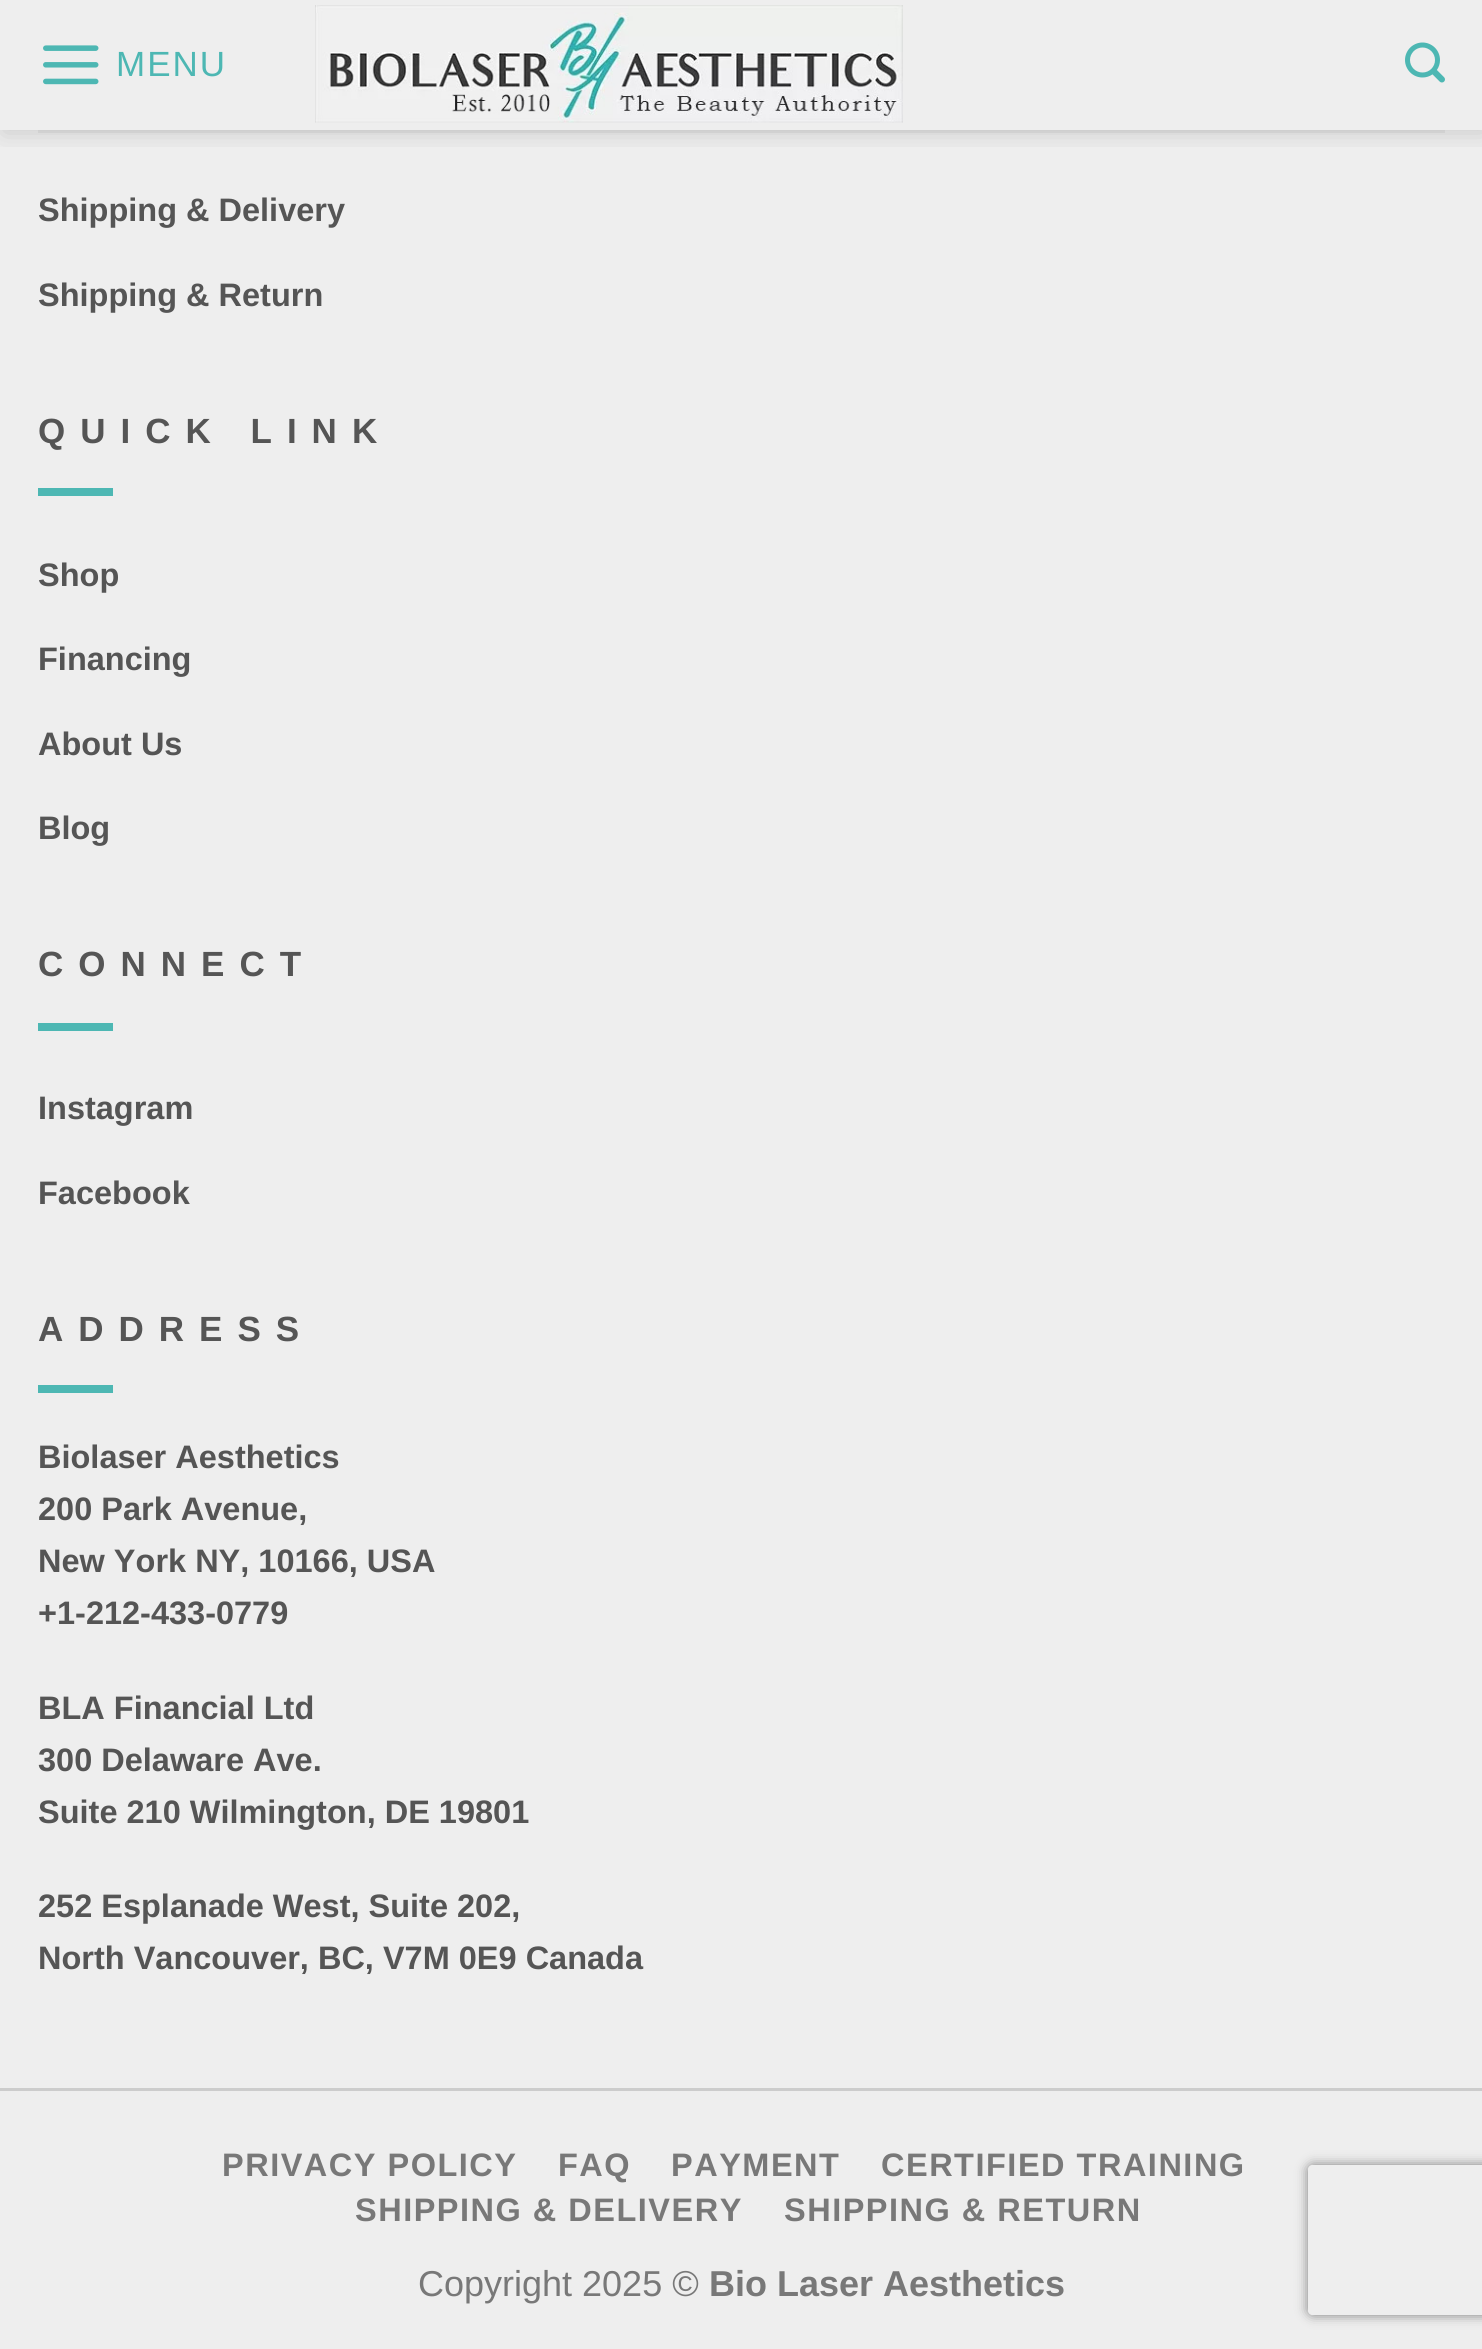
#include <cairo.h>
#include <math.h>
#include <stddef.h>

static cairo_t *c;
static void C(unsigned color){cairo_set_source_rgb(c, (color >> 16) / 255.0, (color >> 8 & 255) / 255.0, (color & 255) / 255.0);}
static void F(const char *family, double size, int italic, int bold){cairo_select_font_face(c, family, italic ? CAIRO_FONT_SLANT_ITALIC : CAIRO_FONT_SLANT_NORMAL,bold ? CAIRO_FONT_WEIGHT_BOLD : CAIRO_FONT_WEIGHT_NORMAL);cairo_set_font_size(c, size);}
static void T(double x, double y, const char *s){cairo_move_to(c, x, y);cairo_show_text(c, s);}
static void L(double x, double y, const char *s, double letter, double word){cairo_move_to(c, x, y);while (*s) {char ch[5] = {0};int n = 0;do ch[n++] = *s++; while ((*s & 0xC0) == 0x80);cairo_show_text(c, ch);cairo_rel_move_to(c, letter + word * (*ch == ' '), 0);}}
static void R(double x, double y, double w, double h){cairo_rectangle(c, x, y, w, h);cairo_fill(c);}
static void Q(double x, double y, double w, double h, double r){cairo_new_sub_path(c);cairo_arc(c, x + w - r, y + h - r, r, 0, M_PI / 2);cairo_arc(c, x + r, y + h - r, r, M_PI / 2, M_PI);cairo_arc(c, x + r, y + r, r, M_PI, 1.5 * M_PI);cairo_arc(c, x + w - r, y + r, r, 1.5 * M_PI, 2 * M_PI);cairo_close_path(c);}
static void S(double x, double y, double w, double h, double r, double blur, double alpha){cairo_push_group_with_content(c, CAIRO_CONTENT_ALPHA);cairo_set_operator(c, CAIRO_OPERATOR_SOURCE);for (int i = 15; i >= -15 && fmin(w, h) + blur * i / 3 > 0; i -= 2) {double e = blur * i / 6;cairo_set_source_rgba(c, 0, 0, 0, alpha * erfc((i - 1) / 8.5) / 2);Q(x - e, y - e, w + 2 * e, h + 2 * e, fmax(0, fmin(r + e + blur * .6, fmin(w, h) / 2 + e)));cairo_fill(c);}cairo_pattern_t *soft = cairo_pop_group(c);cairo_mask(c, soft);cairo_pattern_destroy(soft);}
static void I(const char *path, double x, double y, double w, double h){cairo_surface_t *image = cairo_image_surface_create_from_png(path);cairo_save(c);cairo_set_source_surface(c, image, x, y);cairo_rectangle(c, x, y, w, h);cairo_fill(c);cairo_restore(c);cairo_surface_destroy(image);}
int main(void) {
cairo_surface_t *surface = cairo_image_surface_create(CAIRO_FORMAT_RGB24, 1482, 2349);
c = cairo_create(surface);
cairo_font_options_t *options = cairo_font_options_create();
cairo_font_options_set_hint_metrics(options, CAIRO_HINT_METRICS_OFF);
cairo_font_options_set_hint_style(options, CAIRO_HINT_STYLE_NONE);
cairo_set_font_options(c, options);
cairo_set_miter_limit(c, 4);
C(0xeeeeee);
cairo_paint(c);
cairo_save(c);
cairo_rectangle(c,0,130,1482,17);
cairo_clip(c);
C(0x000000);
S(3,3,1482,130,0,12.5,.15);
cairo_restore(c);
I("1.png",43,45,56,40);
F("Liberation Sans",35,0,0);
C(0x4db7b3);
L(116,76,"MENU",2,0);
I("2.png",315,5,588,118);
I("3.png",1405,42,40,41);
cairo_set_source_rgba(c,0.467,0.467,0.467,0.1);
R(38,130,1407,3);
F("Liberation Sans",32.5,0,1);
C(0x555555);
T(38,221,"Shipping & Delivery");
T(38,306,"Shipping & Return");
F("Liberation Sans",35,0,1);
L(38,443,"QUICK LINK",15,0);
C(0x4db7b3);
R(38,488,75,8);
F("Liberation Sans",32.5,0,1);
C(0x555555);
T(38,586,"Shop");
T(38,670,"Financing");
T(38,755,"About Us");
T(38,839,"Blog");
F("Liberation Sans",35,0,1);
L(38,976,"CONNECT",15,0);
C(0x4db7b3);
R(38,1023,75,8);
F("Liberation Sans",32.5,0,1);
C(0x555555);
T(38,1119,"Instagram");
T(38,1204,"Facebook");
F("Liberation Sans",35,0,1);
L(38,1341,"ADDRESS",15,0);
C(0x4db7b3);
R(38,1385,75,8);
F("Liberation Sans",32.5,0,1);
C(0x555555);
T(38,1468,"Biolaser Aesthetics");
T(38,1520,"200 Park Avenue,");
T(38,1572,"New York NY, 10166, USA");
T(38,1624,"+1-212-433-0779");
T(38,1719,"BLA Financial Ltd");
T(38,1771,"300 Delaware Ave.");
T(38,1823,"Suite 210 Wilmington, DE 19801");
T(38,1917,"252 Esplanade West, Suite 202,");
T(38,1969,"North Vancouver, BC, V7M 0E9 Canada");
C(0xcccccc);
R(0,2088,1482,3);
C(0x787878);
L(222,2176,"PRIVACY POLICY",1.5,0);
L(558,2176,"FAQ",1.5,0);
L(671,2176,"PAYMENT",1.5,0);
L(881,2176,"CERTIFIED TRAINING",1.5,0);
L(355,2221,"SHIPPING & DELIVERY",1.5,0);
L(784,2221,"SHIPPING & RETURN",1.5,0);
F("Liberation Sans",36,0,0);
T(418,2296,"Copyright 2025 ©");
F("Liberation Sans",36,0,1);
T(709,2296,"Bio Laser Aesthetics");
cairo_save(c);
cairo_set_fill_rule(c,CAIRO_FILL_RULE_EVEN_ODD);
cairo_new_path(c);
cairo_move_to(c,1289,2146);
cairo_line_to(c,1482,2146);
cairo_line_to(c,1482,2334);
cairo_line_to(c,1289,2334);
cairo_close_path(c);
cairo_move_to(c,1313,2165);
cairo_line_to(c,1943,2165);
cairo_curve_to(c,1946,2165,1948,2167,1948,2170);
cairo_line_to(c,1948,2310);
cairo_curve_to(c,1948,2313,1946,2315,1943,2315);
cairo_line_to(c,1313,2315);
cairo_curve_to(c,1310,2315,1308,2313,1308,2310);
cairo_line_to(c,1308,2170);
cairo_curve_to(c,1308,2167,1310,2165,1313,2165);
cairo_close_path(c);
cairo_clip(c);
C(0x808080);
S(1308,2165,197,150,5,6,1);
cairo_restore(c);
cairo_surface_write_to_png(surface, "o.png");
cairo_font_options_destroy(options);
cairo_destroy(c);
cairo_surface_destroy(surface);
return 0;
}
